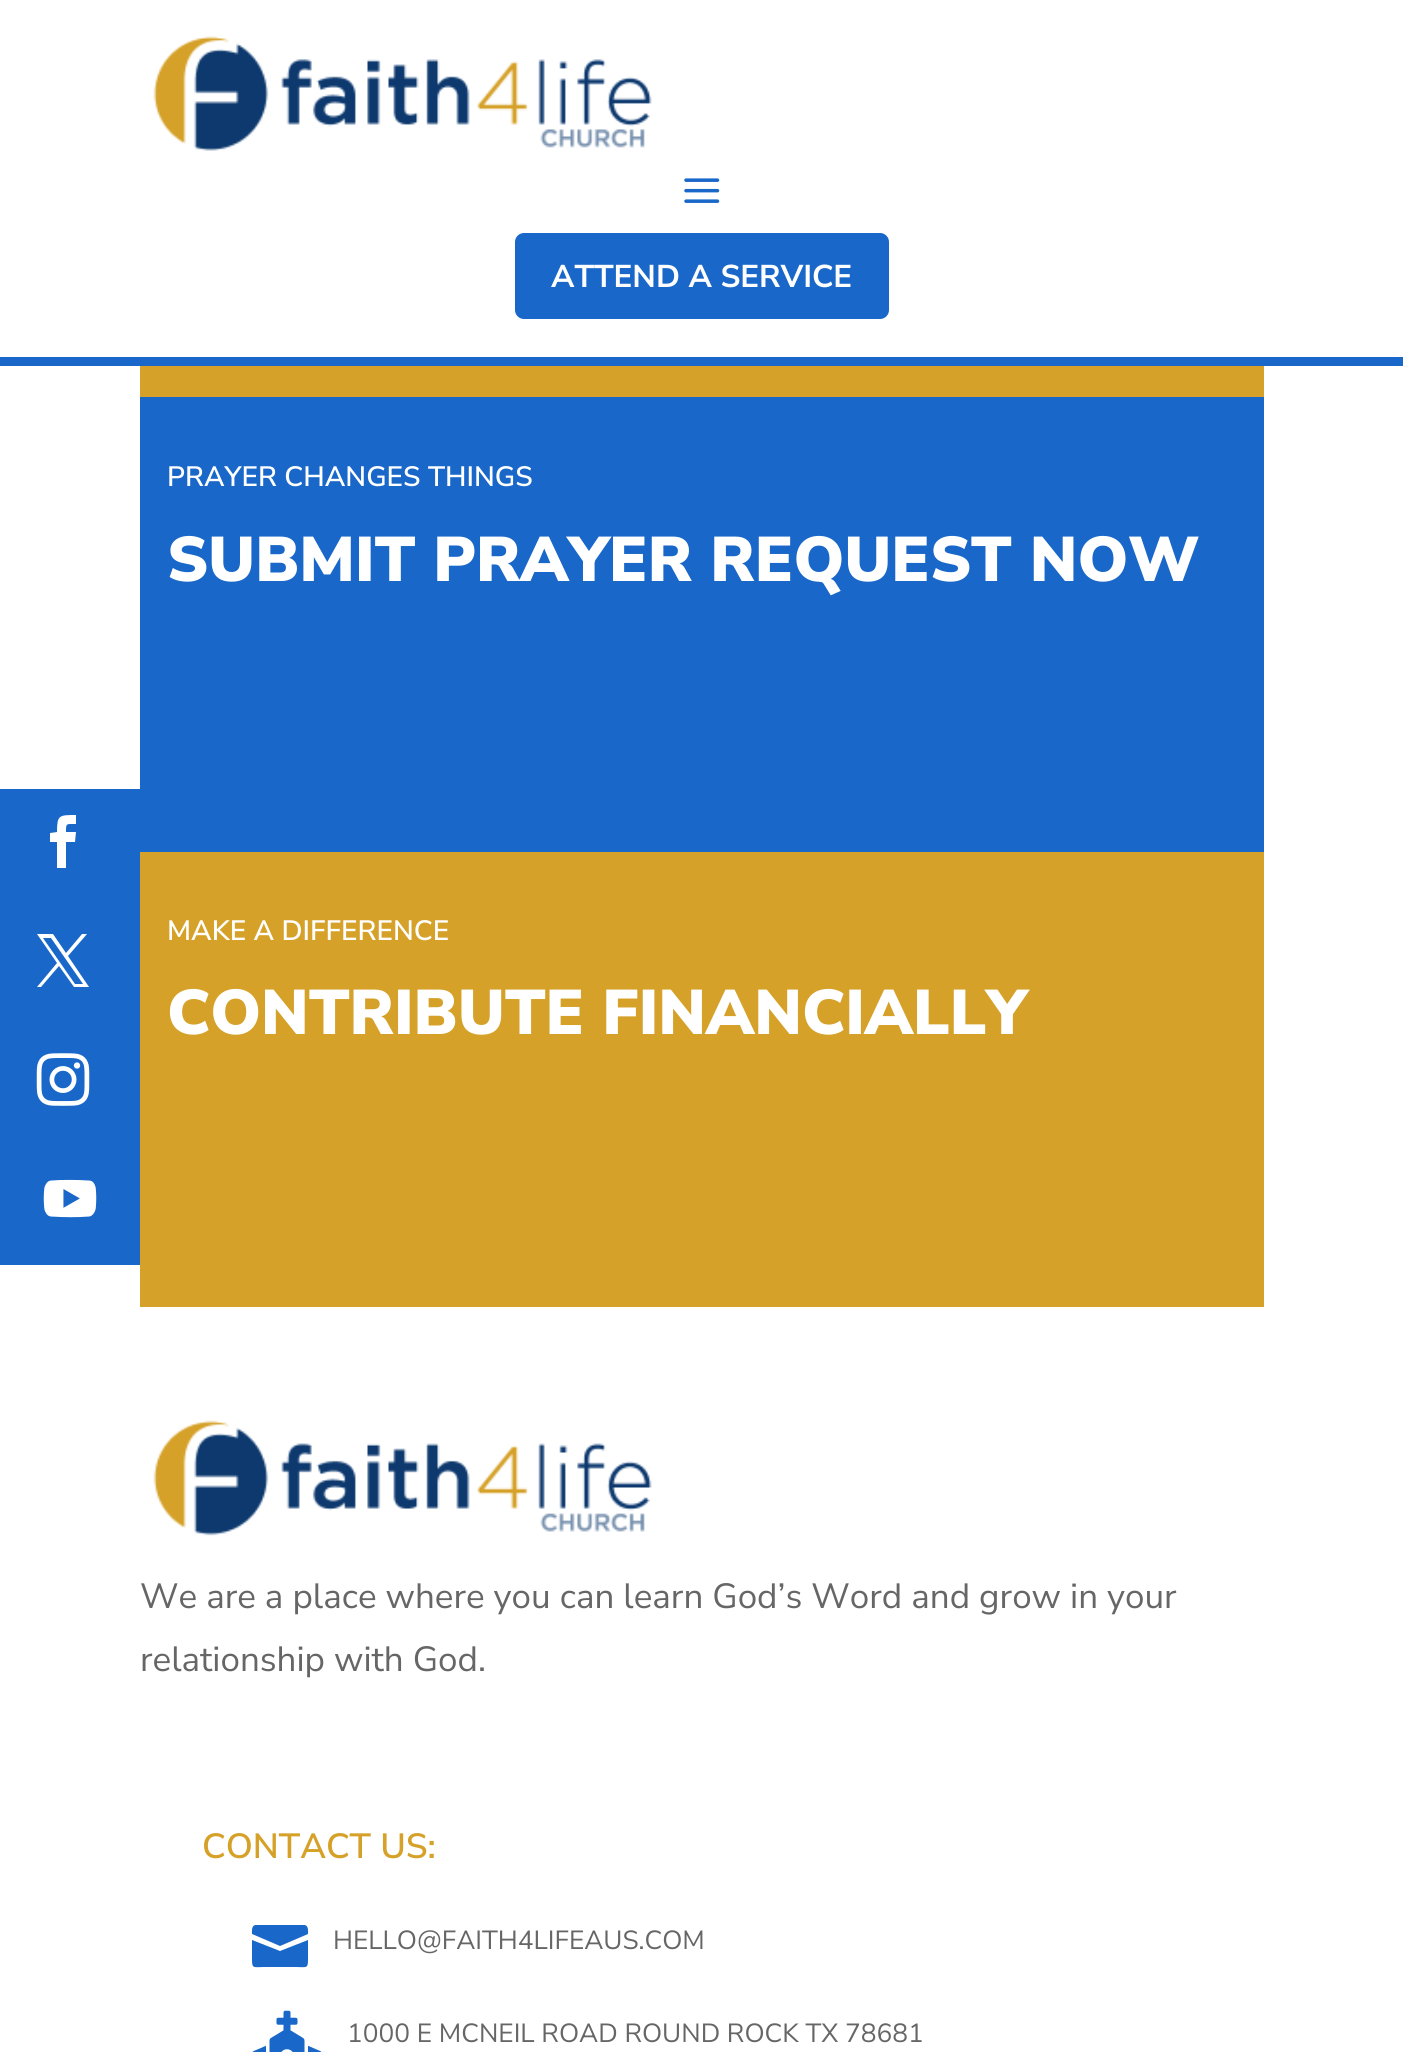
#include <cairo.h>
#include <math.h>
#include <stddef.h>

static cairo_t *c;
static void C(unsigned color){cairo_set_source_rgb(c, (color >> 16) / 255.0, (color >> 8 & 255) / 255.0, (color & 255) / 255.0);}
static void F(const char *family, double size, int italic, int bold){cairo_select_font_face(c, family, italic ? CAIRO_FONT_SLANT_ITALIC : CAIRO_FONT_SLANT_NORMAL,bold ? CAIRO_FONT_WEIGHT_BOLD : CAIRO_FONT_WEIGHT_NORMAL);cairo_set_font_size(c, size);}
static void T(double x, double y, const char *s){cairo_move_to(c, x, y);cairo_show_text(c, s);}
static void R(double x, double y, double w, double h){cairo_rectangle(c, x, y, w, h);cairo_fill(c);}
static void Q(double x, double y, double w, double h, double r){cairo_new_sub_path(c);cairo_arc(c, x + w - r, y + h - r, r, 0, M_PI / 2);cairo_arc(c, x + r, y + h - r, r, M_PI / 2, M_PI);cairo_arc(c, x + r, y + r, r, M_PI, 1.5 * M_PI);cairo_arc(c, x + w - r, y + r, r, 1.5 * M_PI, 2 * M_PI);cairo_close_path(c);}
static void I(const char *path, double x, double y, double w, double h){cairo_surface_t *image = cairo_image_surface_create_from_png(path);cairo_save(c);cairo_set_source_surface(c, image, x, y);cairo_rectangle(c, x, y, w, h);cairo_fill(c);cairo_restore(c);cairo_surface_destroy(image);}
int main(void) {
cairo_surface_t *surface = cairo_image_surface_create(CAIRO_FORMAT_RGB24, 1403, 2052);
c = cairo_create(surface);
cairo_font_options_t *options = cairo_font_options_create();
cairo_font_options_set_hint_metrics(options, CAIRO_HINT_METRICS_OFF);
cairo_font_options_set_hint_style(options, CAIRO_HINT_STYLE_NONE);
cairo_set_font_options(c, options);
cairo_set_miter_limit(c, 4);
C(0xffffff);
cairo_paint(c);
C(0x1867c9);
R(0,357,1403,9);
I("1.png",153,36,499,115);
I("2.png",684,178,36,25);
Q(517.5,235.5,369,81,6.5);
cairo_fill_preserve(c);
cairo_set_line_width(c,5);
cairo_stroke(c);
F("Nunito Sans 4 ExtraLight",31.5,0,0);
C(0xffffff);
T(551,287,"ATTEND A SERVICE");
C(0x1867c9);
R(0,789,140,476);
C(0xffffff);
cairo_new_path(c);
cairo_move_to(c,57,868);
cairo_line_to(c,66,868);
cairo_line_to(c,66,842);
cairo_line_to(c,75,842);
cairo_line_to(c,76,832);
cairo_line_to(c,66,832);
cairo_curve_to(c,66,823,66,824,76,824);
cairo_line_to(c,76,815);
cairo_curve_to(c,59,815,57,815,57,832);
cairo_line_to(c,50,833);
cairo_line_to(c,50,842);
cairo_line_to(c,57,842);
cairo_close_path(c);
cairo_fill(c);
cairo_new_path(c);
cairo_move_to(c,37,934);
cairo_line_to(c,57,963);
cairo_line_to(c,37,987);
cairo_line_to(c,41,987);
cairo_line_to(c,59,966);
cairo_line_to(c,74,987);
cairo_line_to(c,89,987);
cairo_line_to(c,68,956);
cairo_line_to(c,87,934);
cairo_line_to(c,82,934);
cairo_line_to(c,66,953);
cairo_line_to(c,53,934);
cairo_close_path(c);
cairo_move_to(c,43,938);
cairo_line_to(c,51,938);
cairo_line_to(c,83,984);
cairo_line_to(c,75,984);
cairo_close_path(c);
cairo_fill(c);
I("3.png",36,1053,54,53);
I("4.png",43,1179,54,39);
C(0xd5a129);
R(140,366,1124,31);
C(0x1867c9);
R(140,397,1124,455);
F("Nunito Sans ExtraLight",28,0,0);
C(0xffffff);
T(167,486,"PRAYER CHANGES THINGS");
F("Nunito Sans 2 ExtraLight",63,0,0);
T(167,581,"SUBMIT PRAYER REQUEST NOW");
C(0xd5a129);
R(140,852,1124,455);
F("Nunito Sans ExtraLight",28,0,0);
C(0xffffff);
T(167,940,"MAKE A DIFFERENCE");
F("Nunito Sans 2 ExtraLight",63,0,0);
T(167,1034,"CONTRIBUTE FINANCIALLY");
I("5.png",153,1420,499,116);
F("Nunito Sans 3 ExtraLight",35,0,0);
C(0x666666);
T(140,1608,"We are a place where you can learn God’s Word and grow in your");
T(140,1671,"relationship with God.");
F("Nunito Sans ExtraLight",35,0,0);
C(0xd5a129);
T(202,1858,"CONTACT US:");
C(0x1867c9);
cairo_new_path(c);
cairo_move_to(c,304,1925);
cairo_line_to(c,256,1925);
cairo_curve_to(c,251,1925,252,1932,252,1934);
cairo_line_to(c,280,1946);
cairo_line_to(c,308,1934);
cairo_curve_to(c,308,1932,309,1925,304,1925);
cairo_close_path(c);
cairo_move_to(c,252,1940);
cairo_line_to(c,252,1960);
cairo_curve_to(c,252,1969,254,1967,264,1967);
cairo_line_to(c,296,1967);
cairo_curve_to(c,306,1967,308,1969,308,1960);
cairo_line_to(c,308,1940);
cairo_line_to(c,280,1951);
cairo_close_path(c);
cairo_fill(c);
F("Nunito Sans 3 ExtraLight",26.25,0,0);
C(0x666666);
T(333,1949,"HELLO@FAITH4LIFEAUS.COM");
I("6.png",252,2010,70,42);
T(347,2042,"1000 E MCNEIL ROAD ROUND ROCK TX 78681");
cairo_surface_write_to_png(surface, "o.png");
cairo_font_options_destroy(options);
cairo_destroy(c);
cairo_surface_destroy(surface);
return 0;
}
